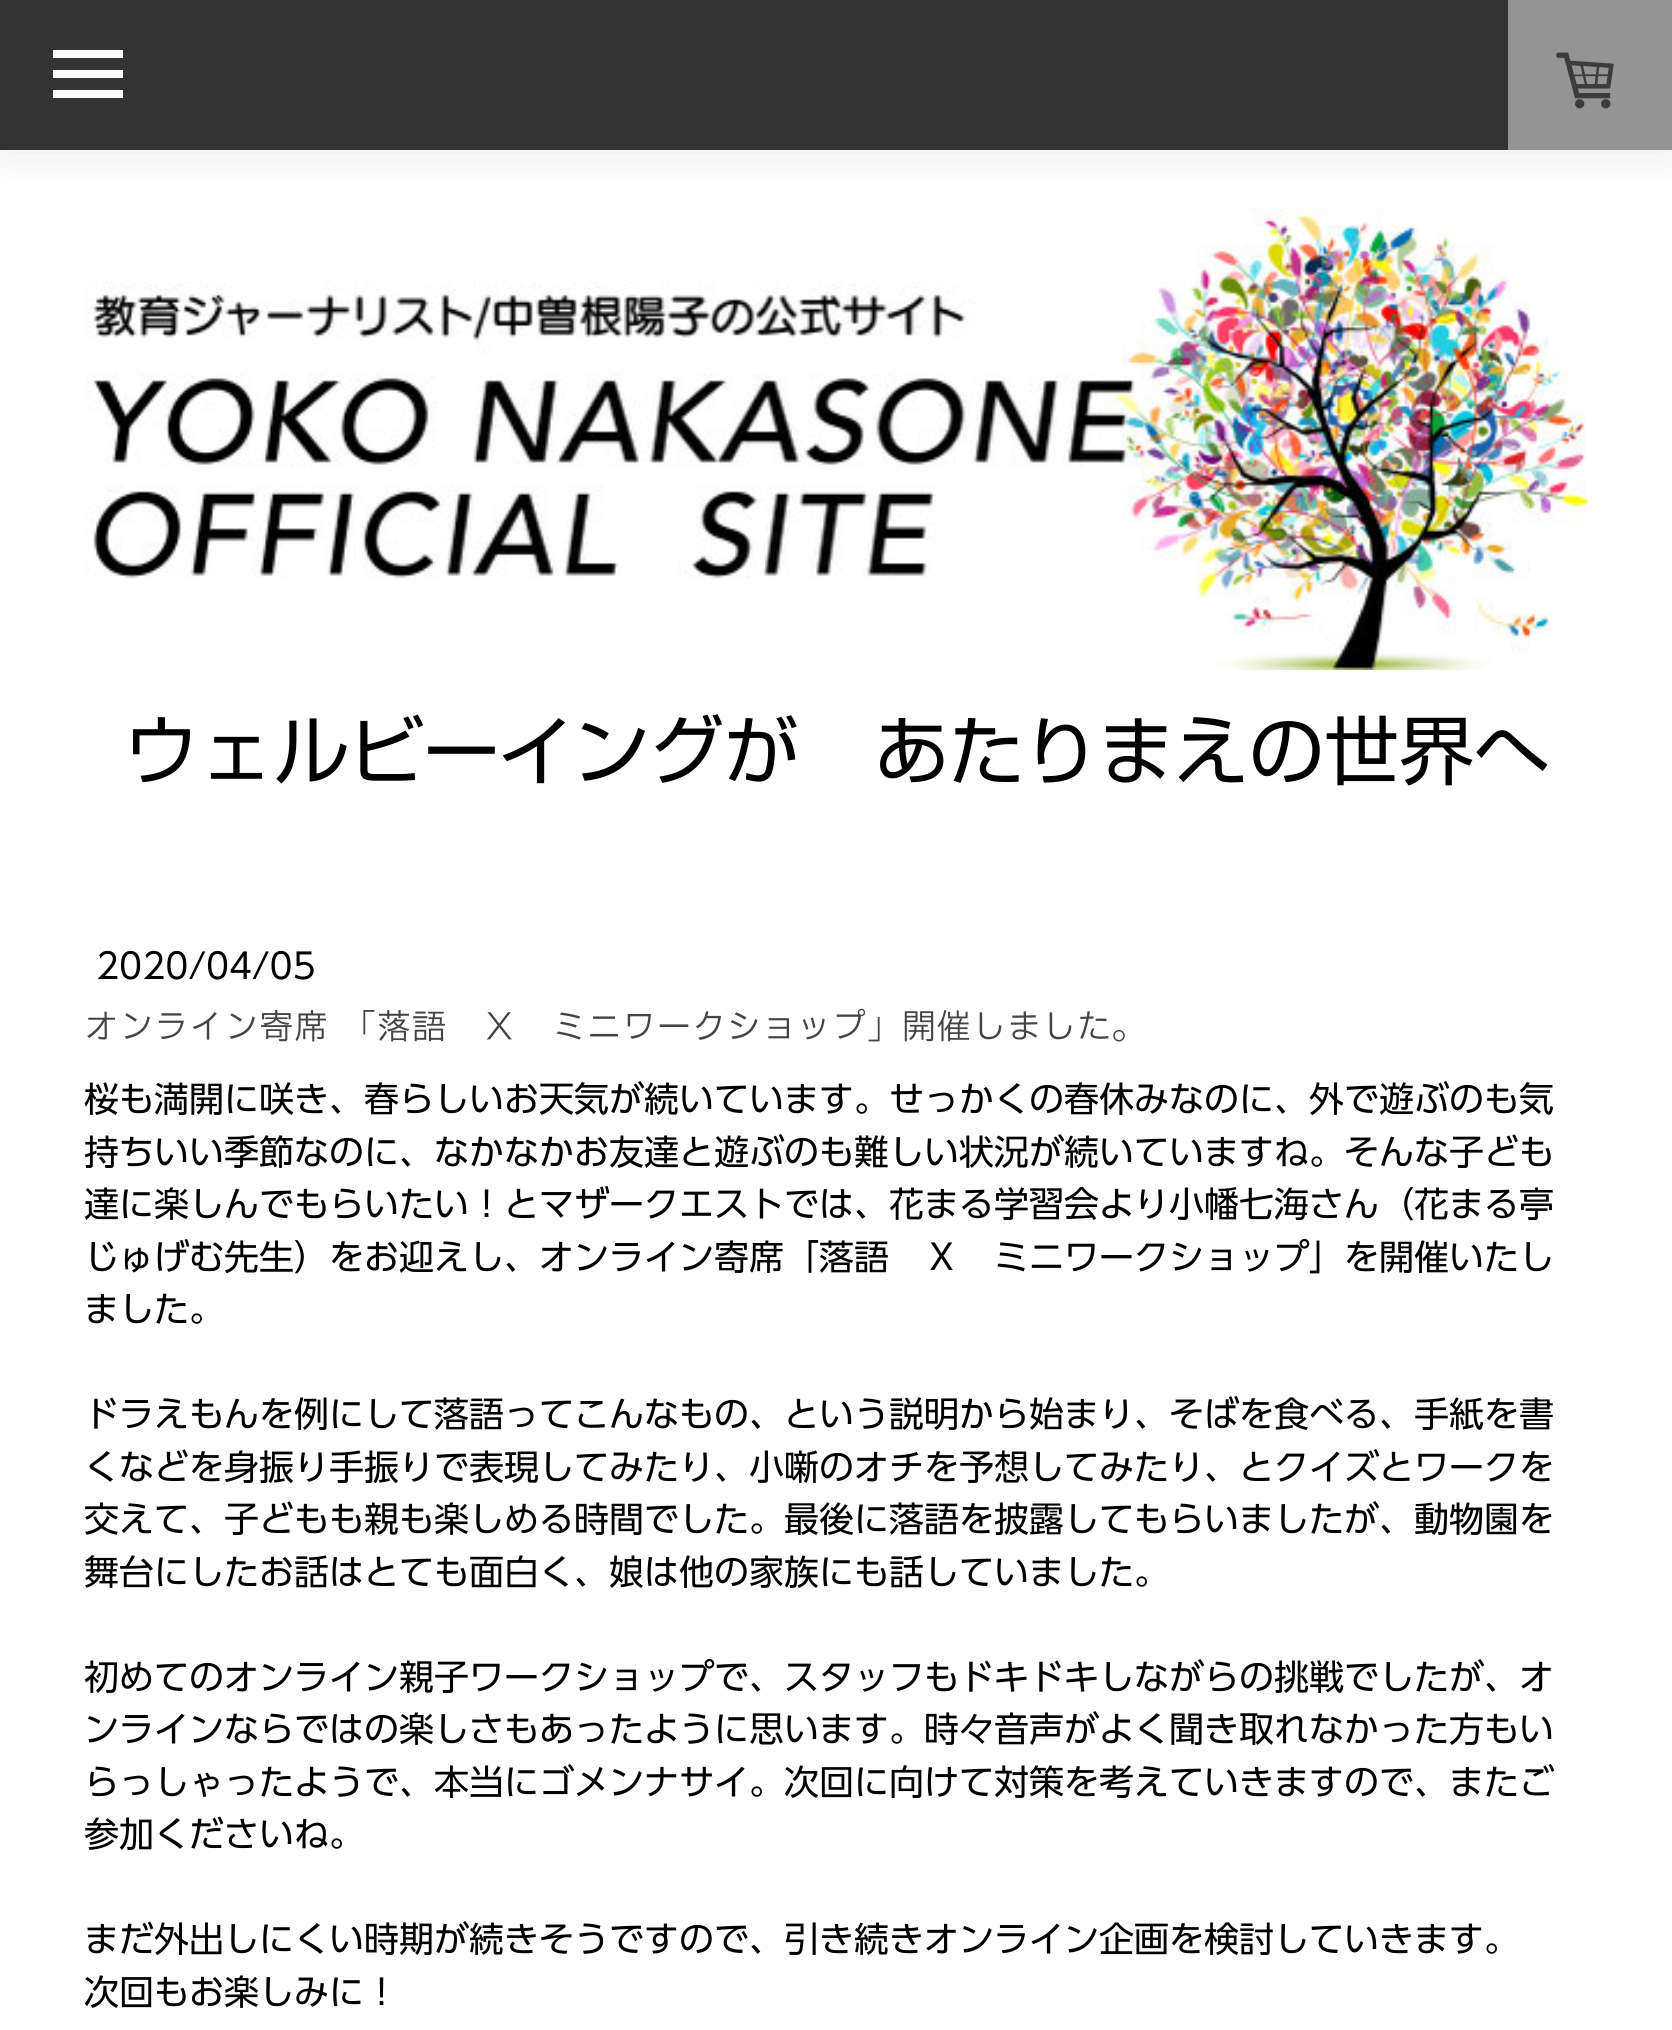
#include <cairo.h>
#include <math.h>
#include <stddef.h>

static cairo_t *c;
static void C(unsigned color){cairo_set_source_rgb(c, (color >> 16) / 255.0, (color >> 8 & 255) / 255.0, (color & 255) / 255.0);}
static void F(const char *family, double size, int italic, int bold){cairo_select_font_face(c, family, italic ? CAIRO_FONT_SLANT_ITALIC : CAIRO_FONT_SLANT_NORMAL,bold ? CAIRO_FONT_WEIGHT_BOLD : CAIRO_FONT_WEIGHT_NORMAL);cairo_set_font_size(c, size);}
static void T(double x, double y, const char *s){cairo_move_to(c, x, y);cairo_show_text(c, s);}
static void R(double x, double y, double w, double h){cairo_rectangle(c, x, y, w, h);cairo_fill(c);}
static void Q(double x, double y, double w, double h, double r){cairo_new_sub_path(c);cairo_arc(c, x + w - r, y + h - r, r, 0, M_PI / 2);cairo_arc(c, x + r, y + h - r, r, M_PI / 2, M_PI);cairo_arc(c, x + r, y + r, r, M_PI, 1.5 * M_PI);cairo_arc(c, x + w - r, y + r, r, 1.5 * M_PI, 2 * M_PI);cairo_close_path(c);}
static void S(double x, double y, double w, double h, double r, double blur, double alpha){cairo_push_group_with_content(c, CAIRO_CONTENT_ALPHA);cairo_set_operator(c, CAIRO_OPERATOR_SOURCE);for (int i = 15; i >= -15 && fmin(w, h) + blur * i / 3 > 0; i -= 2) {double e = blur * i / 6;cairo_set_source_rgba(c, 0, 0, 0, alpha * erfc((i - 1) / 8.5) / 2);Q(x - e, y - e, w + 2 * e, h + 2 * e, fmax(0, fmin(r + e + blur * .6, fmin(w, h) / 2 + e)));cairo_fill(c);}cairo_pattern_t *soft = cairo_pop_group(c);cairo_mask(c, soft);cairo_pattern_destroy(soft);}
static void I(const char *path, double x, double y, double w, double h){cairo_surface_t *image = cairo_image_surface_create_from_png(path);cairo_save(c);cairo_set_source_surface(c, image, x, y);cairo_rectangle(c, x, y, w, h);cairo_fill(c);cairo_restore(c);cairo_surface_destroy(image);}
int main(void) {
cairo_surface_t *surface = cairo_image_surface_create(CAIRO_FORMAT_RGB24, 1672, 2030);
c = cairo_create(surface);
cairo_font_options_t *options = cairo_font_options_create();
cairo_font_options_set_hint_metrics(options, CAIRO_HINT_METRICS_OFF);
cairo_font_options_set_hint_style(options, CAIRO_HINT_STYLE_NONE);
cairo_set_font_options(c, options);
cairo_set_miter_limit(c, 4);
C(0xffffff);
cairo_paint(c);
I("2.png",85,207,1503,463);
C(0x000000);
S(0,0,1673,150,0,25,.1);
C(0x333333);
R(0,0,1508,150);
C(0xffffff);
R(53,70,70,8);
R(53,50,70,8);
R(53,90,70,8);
C(0x949494);
R(1508,0,164,150);
I("1.png",1556,52,58,57);
F("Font",75,0,0);
C(0x000000);
T(124,779,"ウェルビーイングが　あたりまえの世界へ");
F("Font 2",35,0,0);
T(96,979,"2020/04/05");
F("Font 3",35,0,0);
C(0x444444);
T(84,1039,"オンライン寄席 「落語　Ｘ　ミニワークショップ」開催しました。");
F("Font 2",35,0,0);
C(0x000000);
T(84,1112,"桜も満開に咲き、春らしいお天気が続いています。せっかくの春休みなのに、外で遊ぶのも気");
T(84,1165,"持ちいい季節なのに、なかなかお友達と遊ぶのも難しい状況が続いていますね。そんな子ども");
T(84,1217,"達に楽しんでもらいたい！とマザークエストでは、花まる学習会より小幡七海さん（花まる亭");
T(84,1270,"じゅげむ先生）をお迎えし、オンライン寄席「落語　Ｘ　ミニワークショップ」を開催いたし");
T(84,1322,"ました。");
T(84,1427,"ドラえもんを例にして落語ってこんなもの、という説明から始まり、そばを食べる、手紙を書");
T(84,1480,"くなどを身振り手振りで表現してみたり、小噺のオチを予想してみたり、とクイズとワークを");
T(84,1532,"交えて、子どもも親も楽しめる時間でした。最後に落語を披露してもらいましたが、動物園を");
T(84,1585,"舞台にしたお話はとても面白く、娘は他の家族にも話していました。");
T(84,1690,"初めてのオンライン親子ワークショップで、スタッフもドキドキしながらの挑戦でしたが、オ");
T(84,1742,"ンラインならではの楽しさもあったように思います。時々音声がよく聞き取れなかった方もい");
T(84,1795,"らっしゃったようで、本当にゴメンナサイ。次回に向けて対策を考えていきますので、またご");
T(84,1847,"参加くださいね。");
T(84,1952,"まだ外出しにくい時期が続きそうですので、引き続きオンライン企画を検討していきます。");
T(84,2005,"次回もお楽しみに！");
cairo_surface_write_to_png(surface, "o.png");
cairo_font_options_destroy(options);
cairo_destroy(c);
cairo_surface_destroy(surface);
return 0;
}
